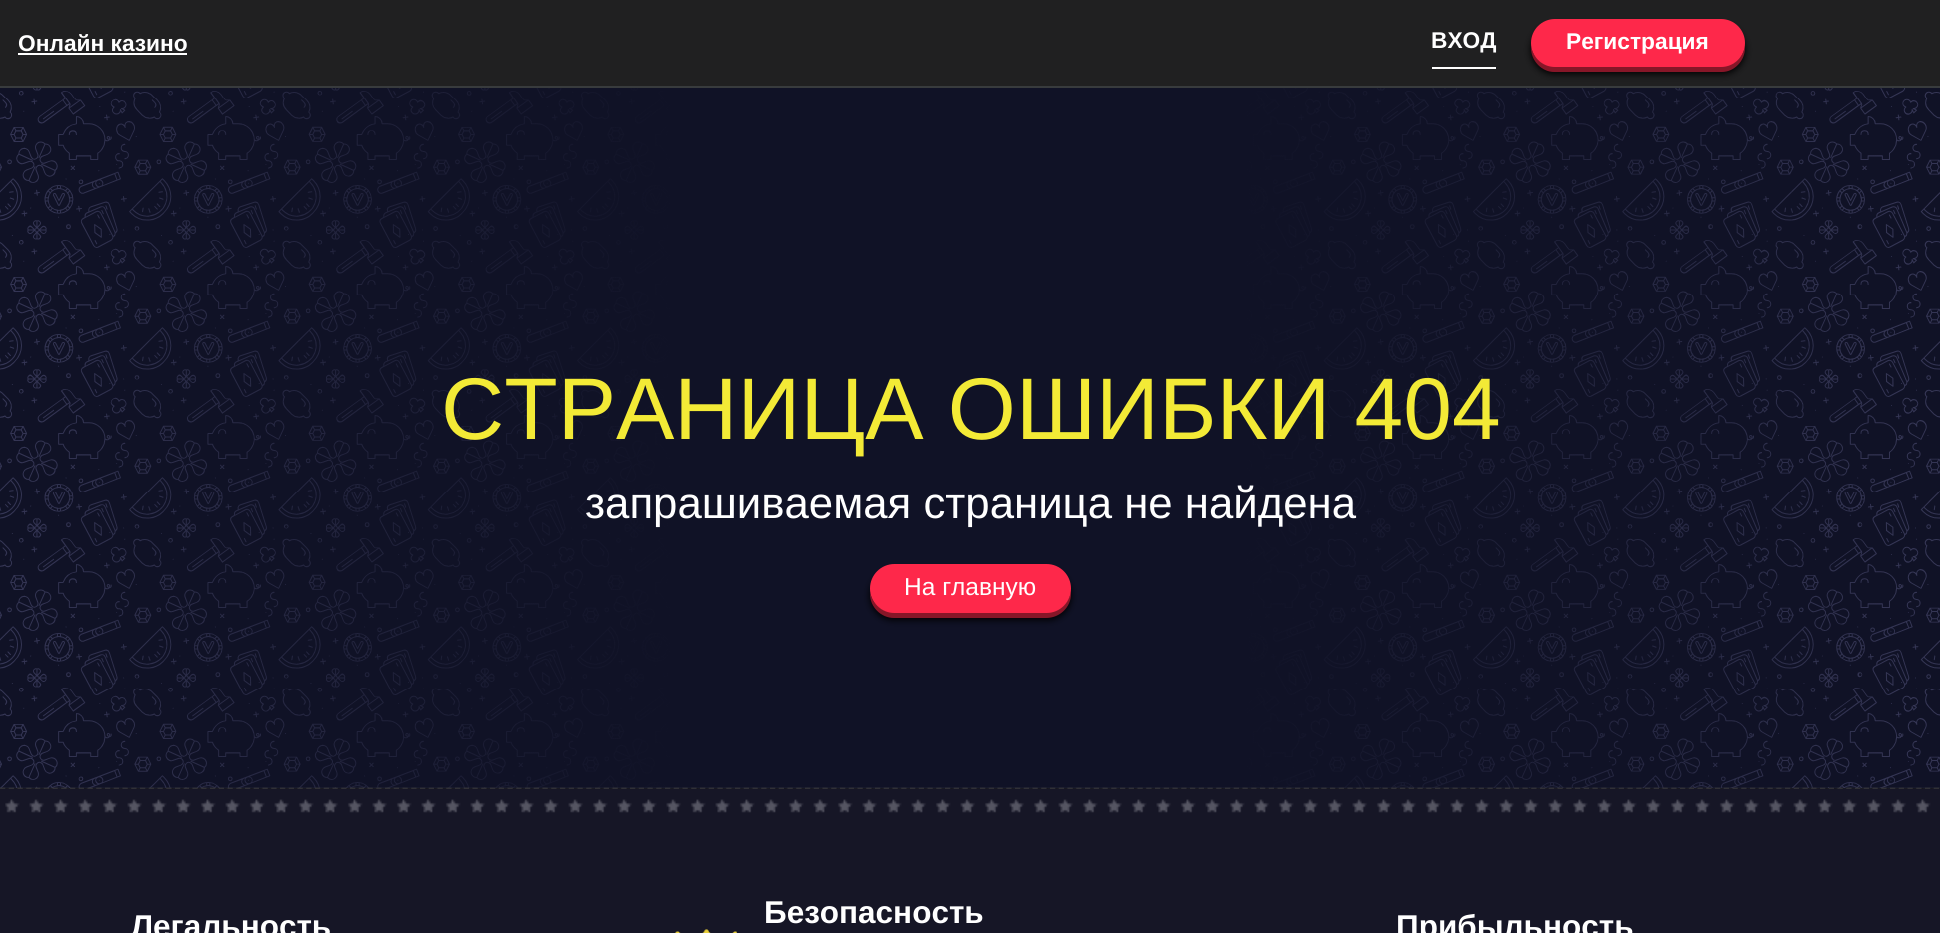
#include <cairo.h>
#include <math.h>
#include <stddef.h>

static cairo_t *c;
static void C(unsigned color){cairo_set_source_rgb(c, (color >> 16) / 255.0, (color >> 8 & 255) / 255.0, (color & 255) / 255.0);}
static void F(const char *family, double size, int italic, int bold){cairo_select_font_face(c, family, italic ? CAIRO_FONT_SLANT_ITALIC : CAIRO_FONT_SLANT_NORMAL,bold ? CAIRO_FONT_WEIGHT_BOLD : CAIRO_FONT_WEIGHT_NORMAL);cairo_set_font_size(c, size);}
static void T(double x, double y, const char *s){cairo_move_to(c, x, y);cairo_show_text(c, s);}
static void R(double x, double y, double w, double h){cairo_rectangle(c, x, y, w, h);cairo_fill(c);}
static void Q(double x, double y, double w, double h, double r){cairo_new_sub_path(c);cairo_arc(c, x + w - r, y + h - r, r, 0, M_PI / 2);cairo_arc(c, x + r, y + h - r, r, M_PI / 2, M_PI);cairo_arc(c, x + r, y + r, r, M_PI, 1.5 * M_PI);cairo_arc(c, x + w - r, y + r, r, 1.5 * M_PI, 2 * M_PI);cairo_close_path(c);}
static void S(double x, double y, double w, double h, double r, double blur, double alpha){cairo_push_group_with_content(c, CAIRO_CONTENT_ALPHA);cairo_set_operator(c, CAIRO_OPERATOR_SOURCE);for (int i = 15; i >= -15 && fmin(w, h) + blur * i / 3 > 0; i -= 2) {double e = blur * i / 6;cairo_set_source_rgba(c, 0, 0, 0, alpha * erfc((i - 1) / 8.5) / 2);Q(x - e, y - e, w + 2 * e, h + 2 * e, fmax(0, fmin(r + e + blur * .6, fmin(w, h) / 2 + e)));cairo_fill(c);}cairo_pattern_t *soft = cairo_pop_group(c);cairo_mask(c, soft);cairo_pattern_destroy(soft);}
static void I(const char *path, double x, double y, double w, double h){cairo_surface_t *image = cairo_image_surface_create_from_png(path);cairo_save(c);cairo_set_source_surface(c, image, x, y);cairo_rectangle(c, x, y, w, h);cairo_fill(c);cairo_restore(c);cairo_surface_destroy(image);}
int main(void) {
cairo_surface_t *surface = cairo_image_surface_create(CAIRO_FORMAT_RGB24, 1940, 933);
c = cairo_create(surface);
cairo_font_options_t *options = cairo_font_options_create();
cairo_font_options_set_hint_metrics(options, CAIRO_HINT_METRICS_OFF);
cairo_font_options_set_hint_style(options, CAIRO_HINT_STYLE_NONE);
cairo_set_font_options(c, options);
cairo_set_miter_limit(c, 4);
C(0x101226);
cairo_paint(c);
I("1.png",0,88,1940,700);
C(0x202021);
R(0,0,1940,86);
C(0x383b3d);
R(0,86,1940,2);
F("Liberation Sans",22.75,0,1);
C(0xffffff);
T(18,51,"Онлайн казино");
R(18,53,169,2);
R(1432,67,64,2);
T(1431,48,"ВХОД");
C(0x000000);
S(1531,26,214,48,24,3.5,1);
C(0x871628);
cairo_new_path(c);
cairo_move_to(c,1531,45);
cairo_line_to(c,1531,48);
cairo_curve_to(c,1531,61,1542,72,1554,72);
cairo_line_to(c,1722,72);
cairo_curve_to(c,1734,72,1745,61,1745,48);
cairo_line_to(c,1745,45);
cairo_curve_to(c,1744,57,1734,66,1721,66);
cairo_line_to(c,1555,66);
cairo_curve_to(c,1542,66,1532,57,1531,45);
cairo_close_path(c);
cairo_fill(c);
C(0xfe284a);
Q(1531,19,214,48,24);
cairo_fill(c);
C(0xffffff);
T(1566,49,"Регистрация");
F("Liberation Sans",87.5,0,0);
C(0xf3ea36);
T(441,439,"СТРАНИЦА ОШИБКИ 404");
F("Liberation Sans",43.75,0,0);
C(0xffffff);
T(585,518,"запрашиваемая страница не найдена");
C(0x000000);
S(870,571,201,49,24.5,3.5,1);
C(0x871628);
cairo_new_path(c);
cairo_move_to(c,870,592);
cairo_line_to(c,870,594);
cairo_curve_to(c,870,607,881,618,894,618);
cairo_line_to(c,1046,618);
cairo_curve_to(c,1060,618,1071,607,1071,594);
cairo_line_to(c,1071,591);
cairo_curve_to(c,1069,603,1059,612,1046,612);
cairo_line_to(c,894,612);
cairo_curve_to(c,882,612,872,604,870,592);
cairo_close_path(c);
cairo_fill(c);
C(0xfe284a);
Q(870,564,201,49,24.5);
cairo_fill(c);
F("Liberation Sans",24.5,0,0);
C(0xffffff);
T(904,595,"На главную");
C(0x0a0a14);
R(5,788,1935,1);
I("2.png",0,787,1940,2);
cairo_new_path(c);
cairo_move_to(c,0,788.5);
cairo_line_to(c,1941,788.5);
C(0x303036);
cairo_set_line_width(c,1.8);
cairo_set_dash(c,(double[]){5.25,3.5},2,0);
cairo_stroke(c);
C(0x161626);
R(0,789,1940,144);
I("3.png",5,799,1926,14);
F("Liberation Sans",31.5,0,1);
C(0xffffff);
T(131,937,"Легальность");
T(764,923,"Безопасность");
I("4.png",675,929,62,4);
T(1396,937,"Прибыльность");
cairo_surface_write_to_png(surface, "o.png");
cairo_font_options_destroy(options);
cairo_destroy(c);
cairo_surface_destroy(surface);
return 0;
}
